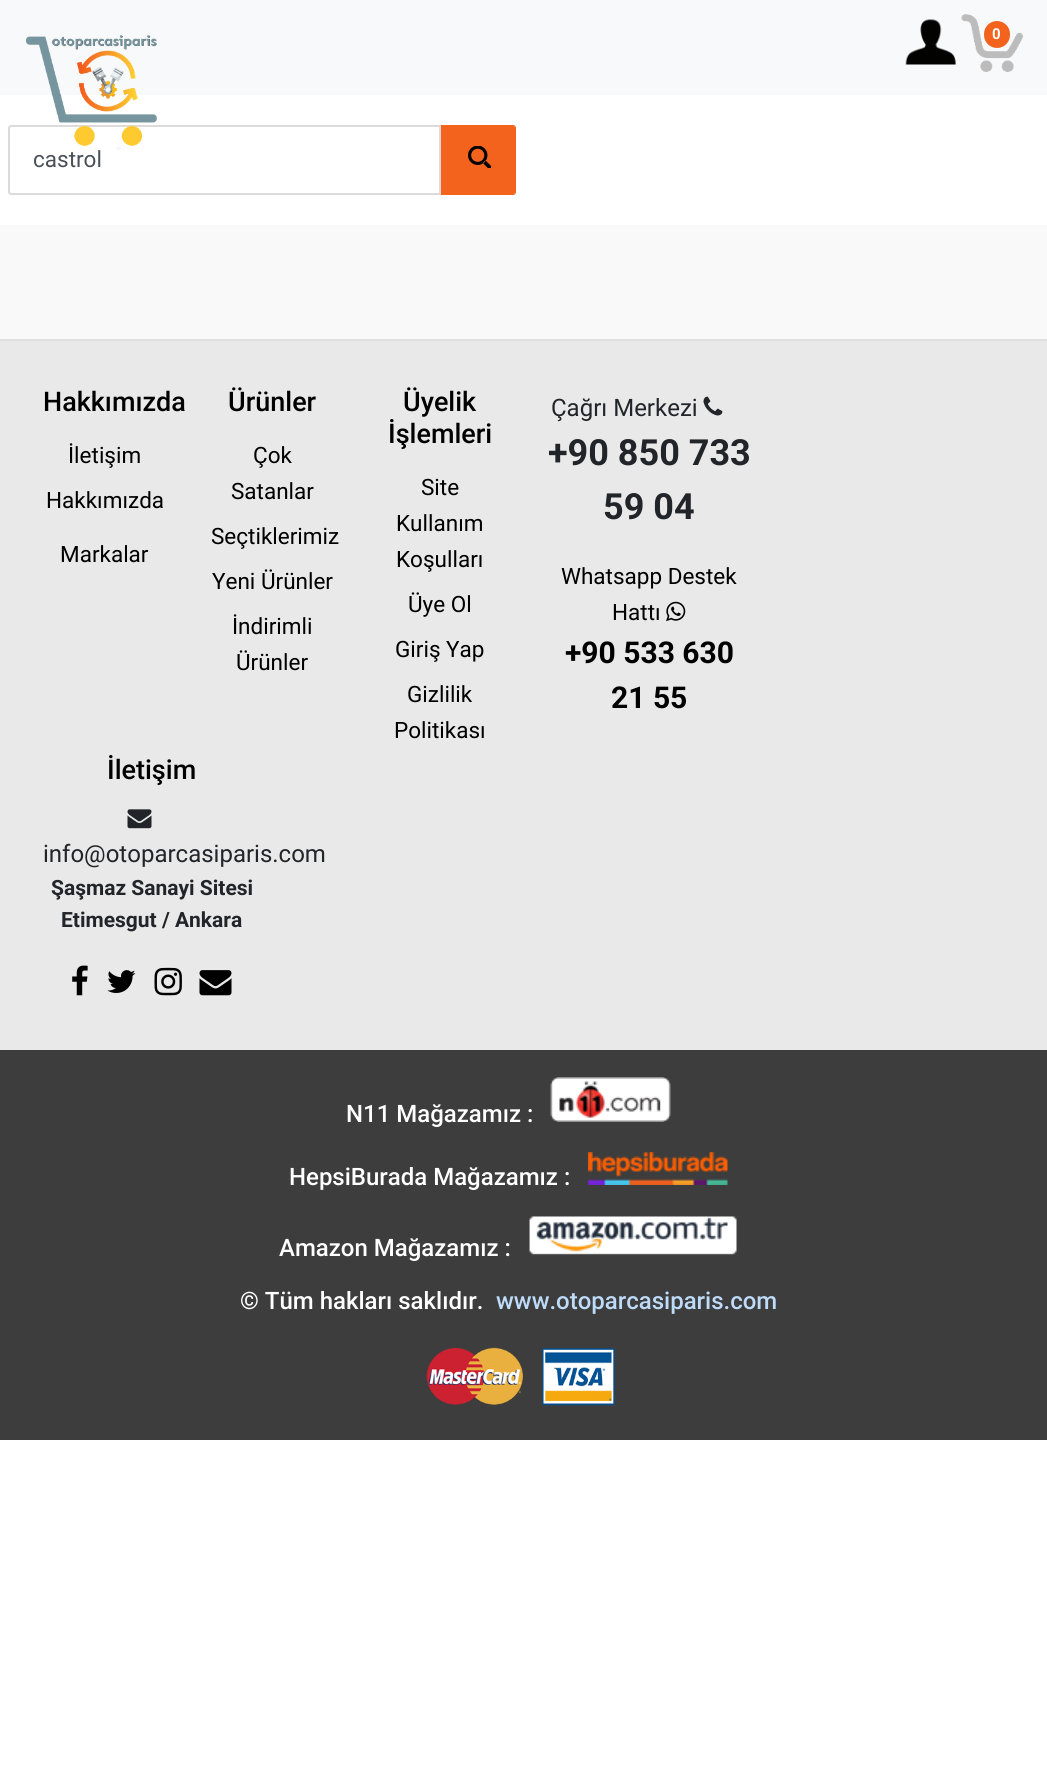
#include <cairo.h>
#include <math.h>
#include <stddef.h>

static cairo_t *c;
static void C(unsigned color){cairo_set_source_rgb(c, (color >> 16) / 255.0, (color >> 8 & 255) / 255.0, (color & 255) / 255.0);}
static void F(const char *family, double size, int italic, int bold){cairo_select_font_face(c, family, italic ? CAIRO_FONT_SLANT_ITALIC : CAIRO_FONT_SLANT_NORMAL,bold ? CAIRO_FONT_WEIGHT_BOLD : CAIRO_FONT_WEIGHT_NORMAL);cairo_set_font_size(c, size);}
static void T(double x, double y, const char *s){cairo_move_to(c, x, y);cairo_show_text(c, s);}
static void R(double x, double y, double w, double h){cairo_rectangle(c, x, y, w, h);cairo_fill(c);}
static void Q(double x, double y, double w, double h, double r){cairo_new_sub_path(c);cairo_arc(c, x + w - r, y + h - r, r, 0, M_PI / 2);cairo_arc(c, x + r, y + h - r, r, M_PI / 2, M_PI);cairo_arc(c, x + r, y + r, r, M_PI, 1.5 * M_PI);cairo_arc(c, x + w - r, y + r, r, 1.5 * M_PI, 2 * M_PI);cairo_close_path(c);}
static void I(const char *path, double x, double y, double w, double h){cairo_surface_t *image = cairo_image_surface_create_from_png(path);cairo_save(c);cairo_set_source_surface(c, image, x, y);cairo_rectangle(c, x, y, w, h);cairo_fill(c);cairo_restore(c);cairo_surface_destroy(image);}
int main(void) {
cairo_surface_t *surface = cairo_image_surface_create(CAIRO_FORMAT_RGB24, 1047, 1773);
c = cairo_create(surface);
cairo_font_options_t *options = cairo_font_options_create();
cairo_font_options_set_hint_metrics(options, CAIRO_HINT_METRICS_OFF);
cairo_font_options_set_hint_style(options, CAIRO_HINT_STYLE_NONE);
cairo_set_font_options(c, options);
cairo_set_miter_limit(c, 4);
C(0xffffff);
cairo_paint(c);
C(0xf8f9fa);
R(0,0,1047,95);
cairo_new_path(c);
cairo_move_to(c,11,126);
cairo_line_to(c,440,126);
cairo_line_to(c,440,194);
cairo_line_to(c,11,194);
cairo_curve_to(c,10,194,9,193,9,192);
cairo_line_to(c,9,128);
cairo_curve_to(c,9,127,10,126,11,126);
cairo_close_path(c);
C(0xdfdada);
cairo_stroke(c);
I("1.png",25,35,132,115);
I("2.png",905,19,51,46);
I("3.png",961,14,62,58);
C(0xf3631e);
Q(984,21,26,27,13);
cairo_fill(c);
F("Roboto",15,0,1);
C(0xffffff);
T(992,39,"0");
F("Roboto",22.5,0,0);
C(0x495057);
T(33,167,"castrol");
C(0xf3631e);
cairo_new_path(c);
cairo_move_to(c,442,126);
cairo_line_to(c,513,126);
cairo_curve_to(c,514,126,515,127,515,128);
cairo_line_to(c,515,192);
cairo_curve_to(c,515,193,514,194,513,194);
cairo_line_to(c,442,194);
cairo_close_path(c);
cairo_fill_preserve(c);
cairo_stroke(c);
I("4.png",468,146,23,22);
C(0xf9f9f9);
R(0,225,1047,114);
C(0xe9e9e9);
R(0,341,1047,709);
C(0xe0e0e0);
R(0,339,1047,2);
F("Roboto Medium",27,0,0);
C(0x000000);
T(43,411,"Hakkımızda");
F("Roboto",22.5,0,0);
T(68,463,"İletişim");
T(46,508,"Hakkımızda");
T(60,562,"Markalar");
F("Roboto Medium",27,0,0);
T(228,411,"Ürünler");
F("Roboto",22.5,0,0);
T(253,463,"Çok");
T(231,499,"Satanlar");
T(211,544,"Seçtiklerimiz");
T(212,589,"Yeni Ürünler");
T(232,634,"İndirimli");
T(236,670,"Ürünler");
F("Roboto Medium",27,0,0);
T(403,411,"Üyelik");
T(388,443,"İşlemleri");
F("Roboto",22.5,0,0);
T(421,495,"Site");
T(396,531,"Kullanım");
T(396,567,"Koşulları");
T(408,612,"Üye Ol");
T(395,657,"Giriş Yap");
T(407,702,"Gizlilik");
T(394,738,"Politikası");
F("Roboto",24,0,0);
C(0x212529);
T(551,416,"Çağrı Merkezi");
I("5.png",703,396,20,20);
F("Roboto",36,0,1);
T(548,465,"+90 850 733");
T(603,519,"59 04");
F("Roboto",22.5,0,0);
C(0x000000);
T(561,584,"Whatsapp Destek");
T(612,620,"Hattı");
I("6.png",666,601,20,21);
F("Roboto",30,0,1);
T(565,663,"+90 533 630");
T(611,708,"21 55");
F("Roboto Medium",27,0,0);
T(107,779,"İletişim");
I("7.png",127,809,25,20);
F("Roboto",24,0,0);
C(0x212529);
T(43,862,"info@otoparcasiparis.com");
F("Roboto",21,0,1);
T(51,895,"Şaşmaz Sanayi Sitesi");
T(61,927,"Etimesgut / Ankara");
I("8.png",72,965,16,31);
I("9.png",107,970,29,23);
I("10.png",154,967,28,29);
I("11.png",199,970,33,26);
C(0x3d3d3d);
R(0,1050,1047,390);
F("Roboto Medium",24,0,0);
C(0xffffff);
T(346,1122,"N11 Mağazamız :");
I("12.png",550,1077,121,45);
T(289,1185,"HepsiBurada Mağazamız :");
I("13.png",588,1152,140,33);
T(279,1256,"Amazon Mağazamız :");
I("14.png",529,1216,208,39);
T(240,1309,"© Tüm hakları saklıdır.");
C(0xbedbf9);
T(496,1309,"www.otoparcasiparis.com");
I("15.png",426,1347,97,58);
I("16.png",542,1348,73,58);
cairo_surface_write_to_png(surface, "o.png");
cairo_font_options_destroy(options);
cairo_destroy(c);
cairo_surface_destroy(surface);
return 0;
}
